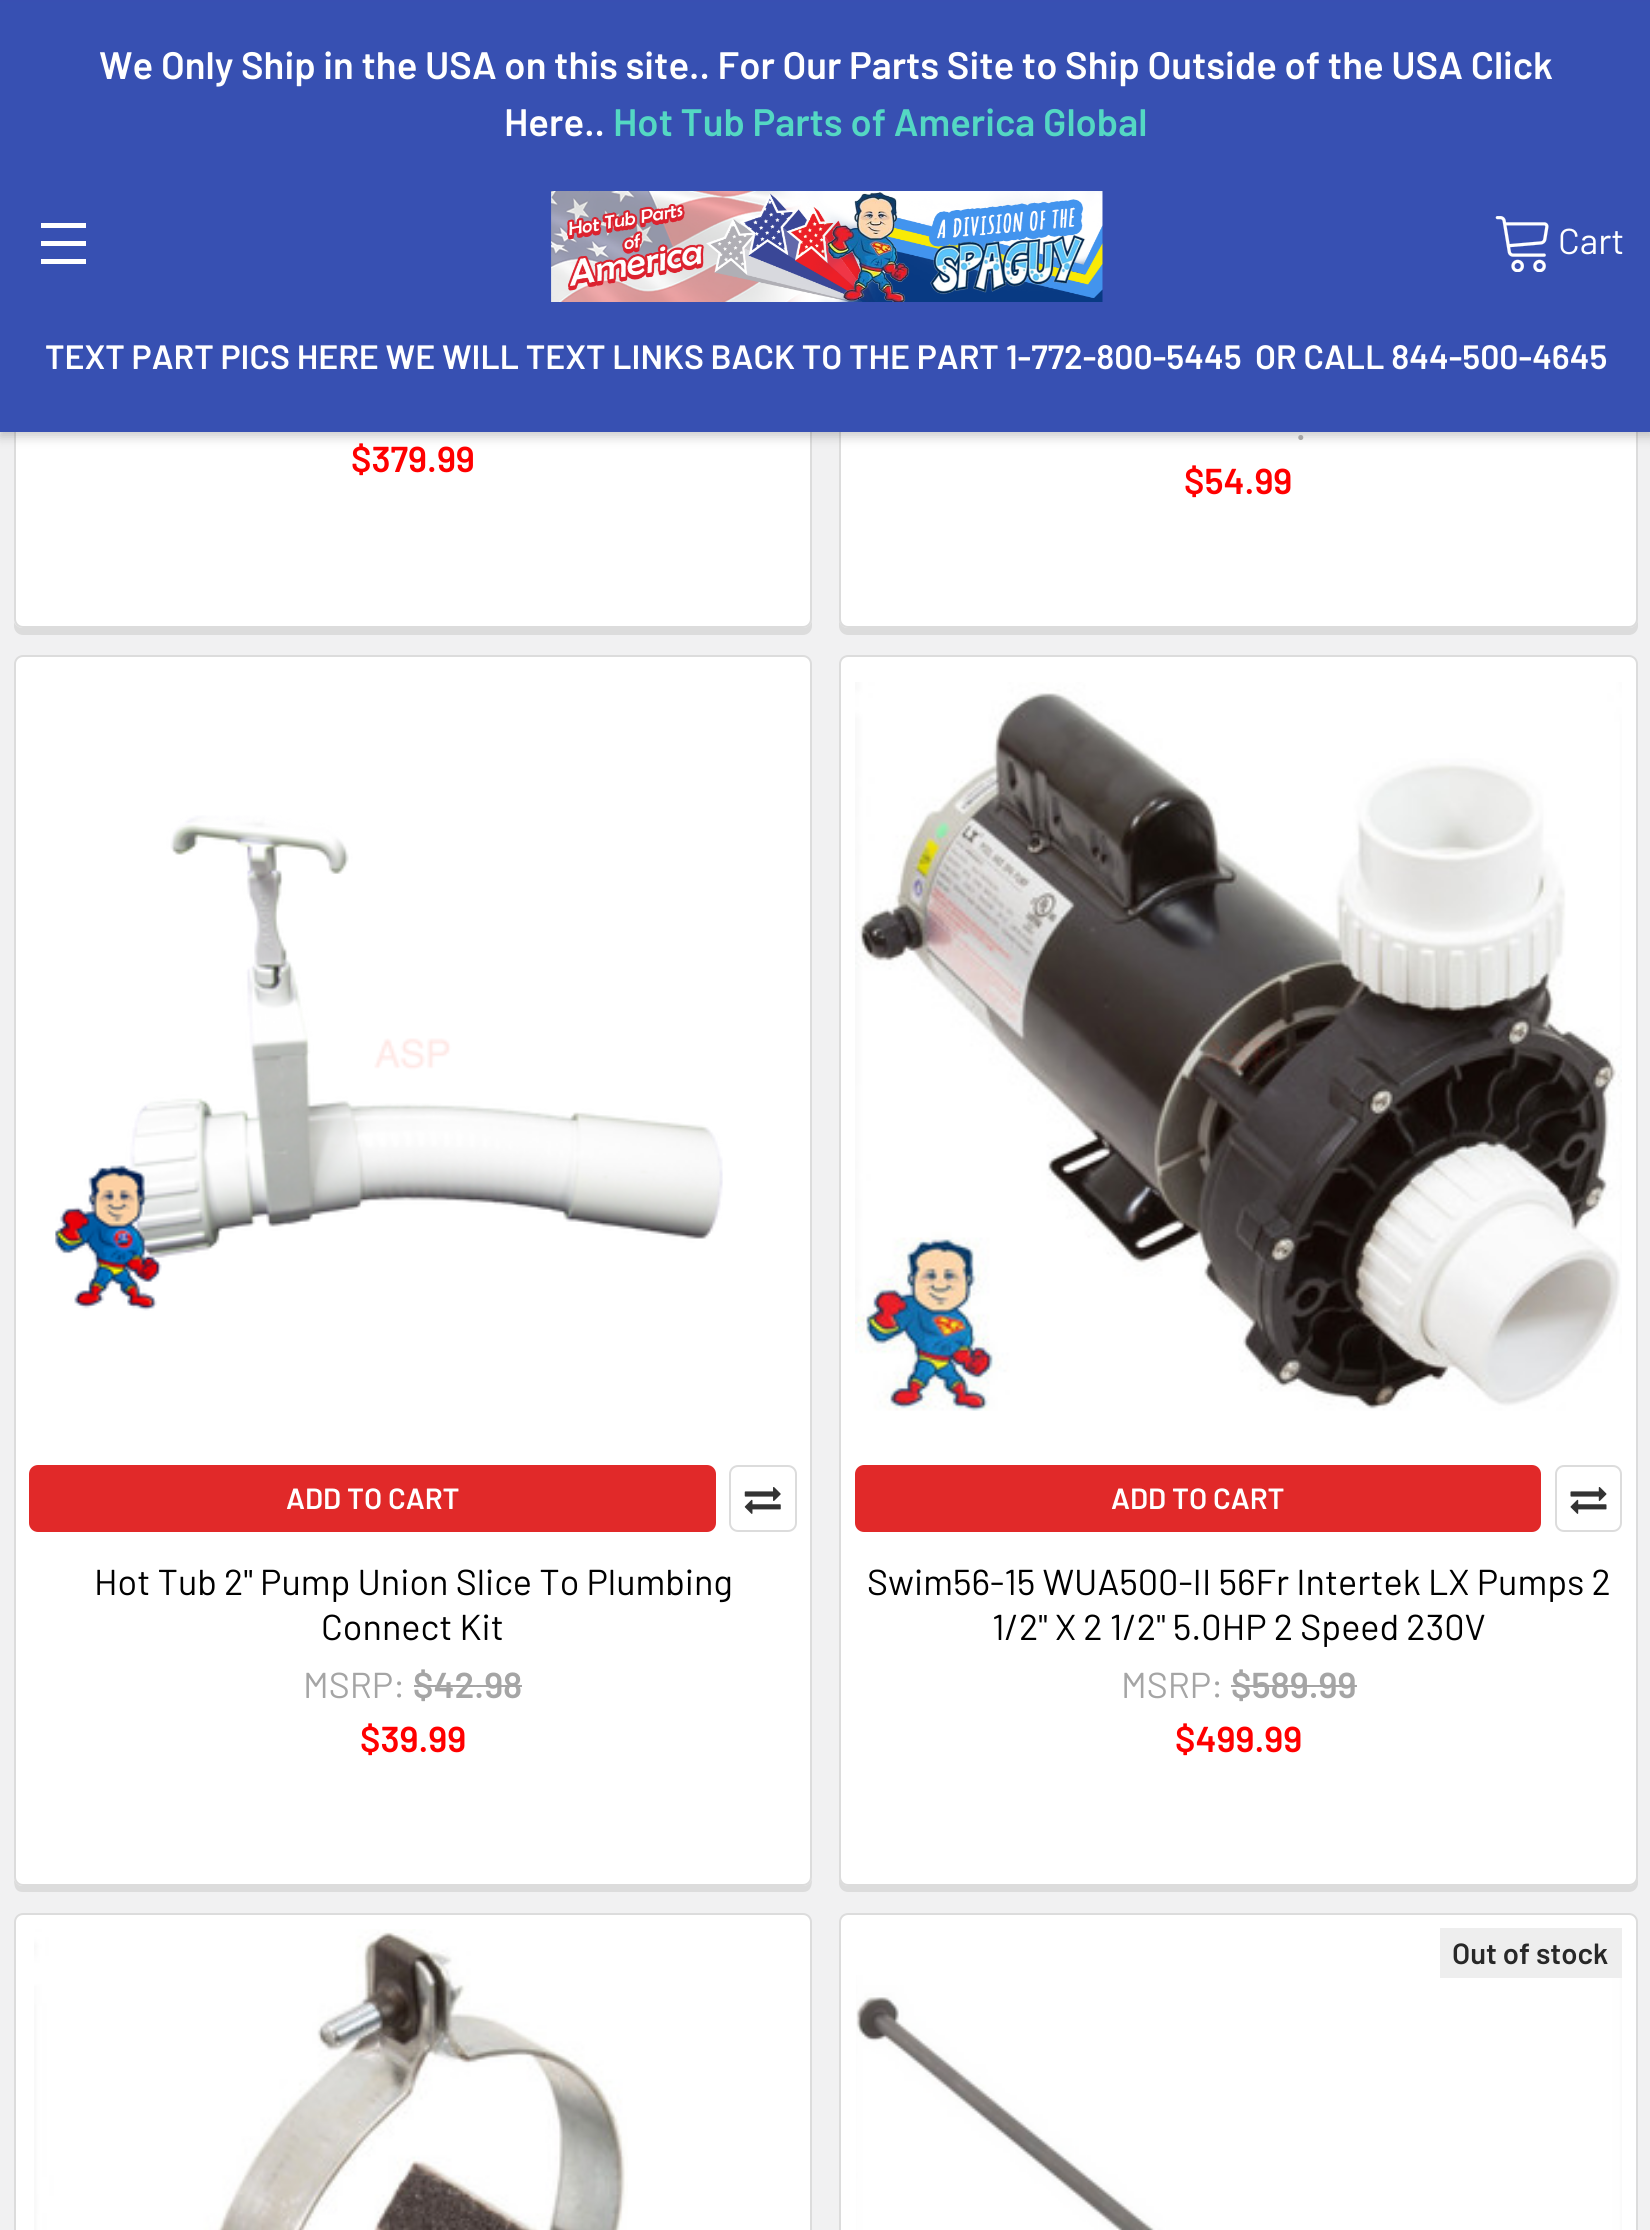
#include <cairo.h>
#include <math.h>
#include <stddef.h>

static cairo_t *c;
static void C(unsigned color){cairo_set_source_rgb(c, (color >> 16) / 255.0, (color >> 8 & 255) / 255.0, (color & 255) / 255.0);}
static void F(const char *family, double size, int italic, int bold){cairo_select_font_face(c, family, italic ? CAIRO_FONT_SLANT_ITALIC : CAIRO_FONT_SLANT_NORMAL,bold ? CAIRO_FONT_WEIGHT_BOLD : CAIRO_FONT_WEIGHT_NORMAL);cairo_set_font_size(c, size);}
static void T(double x, double y, const char *s){cairo_move_to(c, x, y);cairo_show_text(c, s);}
static void R(double x, double y, double w, double h){cairo_rectangle(c, x, y, w, h);cairo_fill(c);}
static void Q(double x, double y, double w, double h, double r){cairo_new_sub_path(c);cairo_arc(c, x + w - r, y + h - r, r, 0, M_PI / 2);cairo_arc(c, x + r, y + h - r, r, M_PI / 2, M_PI);cairo_arc(c, x + r, y + r, r, M_PI, 1.5 * M_PI);cairo_arc(c, x + w - r, y + r, r, 1.5 * M_PI, 2 * M_PI);cairo_close_path(c);}
static void S(double x, double y, double w, double h, double r, double blur, double alpha){cairo_push_group_with_content(c, CAIRO_CONTENT_ALPHA);cairo_set_operator(c, CAIRO_OPERATOR_SOURCE);for (int i = 15; i >= -15 && fmin(w, h) + blur * i / 3 > 0; i -= 2) {double e = blur * i / 6;cairo_set_source_rgba(c, 0, 0, 0, alpha * erfc((i - 1) / 8.5) / 2);Q(x - e, y - e, w + 2 * e, h + 2 * e, fmax(0, fmin(r + e + blur * .6, fmin(w, h) / 2 + e)));cairo_fill(c);}cairo_pattern_t *soft = cairo_pop_group(c);cairo_mask(c, soft);cairo_pattern_destroy(soft);}
static void I(const char *path, double x, double y, double w, double h){cairo_surface_t *image = cairo_image_surface_create_from_png(path);cairo_save(c);cairo_set_source_surface(c, image, x, y);cairo_rectangle(c, x, y, w, h);cairo_fill(c);cairo_restore(c);cairo_surface_destroy(image);}
int main(void) {
cairo_surface_t *surface = cairo_image_surface_create(CAIRO_FORMAT_RGB24, 1650, 2230);
c = cairo_create(surface);
cairo_font_options_t *options = cairo_font_options_create();
cairo_font_options_set_hint_metrics(options, CAIRO_HINT_METRICS_OFF);
cairo_font_options_set_hint_style(options, CAIRO_HINT_STYLE_NONE);
cairo_set_font_options(c, options);
cairo_set_miter_limit(c, 4);
C(0xf1f1f2);
cairo_paint(c);
C(0xdcdcdc);
cairo_new_path(c);
cairo_move_to(c,14,622);
cairo_line_to(c,14,626);
cairo_curve_to(c,14,631,18,635,23,635);
cairo_line_to(c,803,635);
cairo_curve_to(c,808,635,812,631,812,626);
cairo_line_to(c,812,621);
cairo_curve_to(c,811,625,807,628,803,628);
cairo_line_to(c,22,628);
cairo_curve_to(c,19,628,15,625,14,622);
cairo_close_path(c);
cairo_fill(c);
C(0xffffff);
Q(15,-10,796,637,8);
cairo_fill_preserve(c);
C(0xdcdcdc);
cairo_stroke(c);
cairo_new_path(c);
cairo_move_to(c,839,-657);
cairo_line_to(c,839,626);
cairo_curve_to(c,839,631,843,635,848,635);
cairo_line_to(c,1629,635);
cairo_curve_to(c,1634,635,1638,631,1638,626);
cairo_line_to(c,1638,619);
cairo_curve_to(c,1638,624,1634,628,1629,628);
cairo_line_to(c,848,628);
cairo_curve_to(c,843,628,839,624,839,619);
cairo_close_path(c);
cairo_fill(c);
C(0xffffff);
Q(840,-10,797,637,8);
cairo_fill_preserve(c);
C(0xdcdcdc);
cairo_stroke(c);
C(0x000000);
S(0,5,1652,432,0,5.5,.2);
C(0x3750b2);
R(0,2,1650,430);
C(0x384fb2);
R(0,0,1650,2);
F("Barlow SemiBold",38.25,0,0);
C(0xffffff);
T(99,79,"We Only Ship in the USA on this site.. For Our Parts Site to Ship Outside of the USA Click");
T(504,136,"Here..");
C(0x54d8c3);
T(613,136,"Hot Tub Parts of America Global");
C(0xffffff);
R(41,241,45,5);
R(41,223,45,5);
R(41,259,45,5);
I("1.png",551,191,552,111);
I("2.png",1495,216,54,56);
F("Barlow",36,0,0);
T(1558,254,"Cart");
F("Barlow SemiBold",33.75,0,0);
T(45,369,"TEXT PART PICS HERE WE WILL TEXT LINKS BACK TO THE PART 1-772-800-5445  OR CALL 844-500-4645");
F("Barlow SemiBold",36,0,0);
C(0xff0000);
T(351,472,"$379.99");
C(0xa5a5a5);
T(1296,440,".");
C(0xff0000);
T(1184,494,"$54.99");
C(0xdcdcdc);
cairo_new_path(c);
cairo_move_to(c,14,1879);
cairo_curve_to(c,14,1886,15,1892,23,1892);
cairo_line_to(c,803,1892);
cairo_curve_to(c,811,1892,812,1885,812,1879);
cairo_curve_to(c,811,1883,807,1886,803,1886);
cairo_line_to(c,22,1886);
cairo_curve_to(c,19,1886,15,1883,14,1879);
cairo_close_path(c);
cairo_fill(c);
C(0xffffff);
Q(15,656,796,1229,8);
cairo_fill_preserve(c);
C(0xdcdcdc);
cairo_stroke(c);
I("3.png",55,815,668,496);
C(0xe12929);
Q(30,1466,685,65,8);
cairo_fill_preserve(c);
cairo_stroke(c);
F("Barlow SemiBold",29.25,0,0);
C(0xffffff);
T(286,1509,"ADD TO CART");
Q(730,1466,66,65,8);
C(0xdcdcdc);
cairo_stroke(c);
I("4.png",744,1487,37,27);
F("Barlow",36,0,0);
C(0x000000);
T(94,1595,"Hot Tub 2\" Pump Union Slice To Plumbing");
T(321,1640,"Connect Kit");
C(0xa5a5a5);
T(303,1698,"MSRP:");
F("Barlow SemiBold",36,0,0);
T(413,1698,"$42.98");
R(414,1685,108,2);
C(0xff0000);
T(360,1752,"$39.99");
C(0xdcdcdc);
cairo_new_path(c);
cairo_move_to(c,839,669);
cairo_line_to(c,839,1883);
cairo_curve_to(c,839,1888,843,1892,848,1892);
cairo_line_to(c,1629,1892);
cairo_curve_to(c,1634,1892,1638,1888,1638,1883);
cairo_line_to(c,1638,1876);
cairo_curve_to(c,1638,1881,1634,1886,1629,1886);
cairo_line_to(c,848,1886);
cairo_curve_to(c,843,1886,839,1881,839,1876);
cairo_close_path(c);
cairo_fill(c);
C(0xffffff);
Q(840,656,797,1229,8);
cairo_fill_preserve(c);
C(0xdcdcdc);
cairo_stroke(c);
I("5.png",855,682,767,729);
C(0xe12929);
Q(856,1466,684,65,8);
cairo_fill_preserve(c);
cairo_stroke(c);
F("Barlow SemiBold",29.25,0,0);
C(0xffffff);
T(1111,1509,"ADD TO CART");
Q(1556,1466,65,65,8);
C(0xdcdcdc);
cairo_stroke(c);
I("6.png",1570,1487,37,27);
F("Barlow",36,0,0);
C(0x000000);
T(867,1595,"Swim56-15 WUA500-II 56Fr Intertek LX Pumps 2");
T(992,1640,"1/2\" X 2 1/2\" 5.0HP 2 Speed 230V");
C(0xa5a5a5);
T(1121,1698,"MSRP:");
F("Barlow SemiBold",36,0,0);
T(1231,1698,"$589.99");
R(1231,1685,126,2);
C(0xff0000);
T(1175,1752,"$499.99");
C(0xffffff);
Q(15,1914,796,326,8);
cairo_fill_preserve(c);
C(0xdcdcdc);
cairo_stroke(c);
I("7.png",34,1929,594,301);
C(0xffffff);
Q(840,1914,797,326,8);
cairo_fill_preserve(c);
C(0xdcdcdc);
cairo_stroke(c);
I("8.png",856,1975,766,255);
C(0xeeeeee);
R(1440,1928,182,50);
F("Barlow SemiBold",29.25,0,0);
C(0x282828);
T(1452,1964,"Out of stock");
cairo_surface_write_to_png(surface, "o.png");
cairo_font_options_destroy(options);
cairo_destroy(c);
cairo_surface_destroy(surface);
return 0;
}
